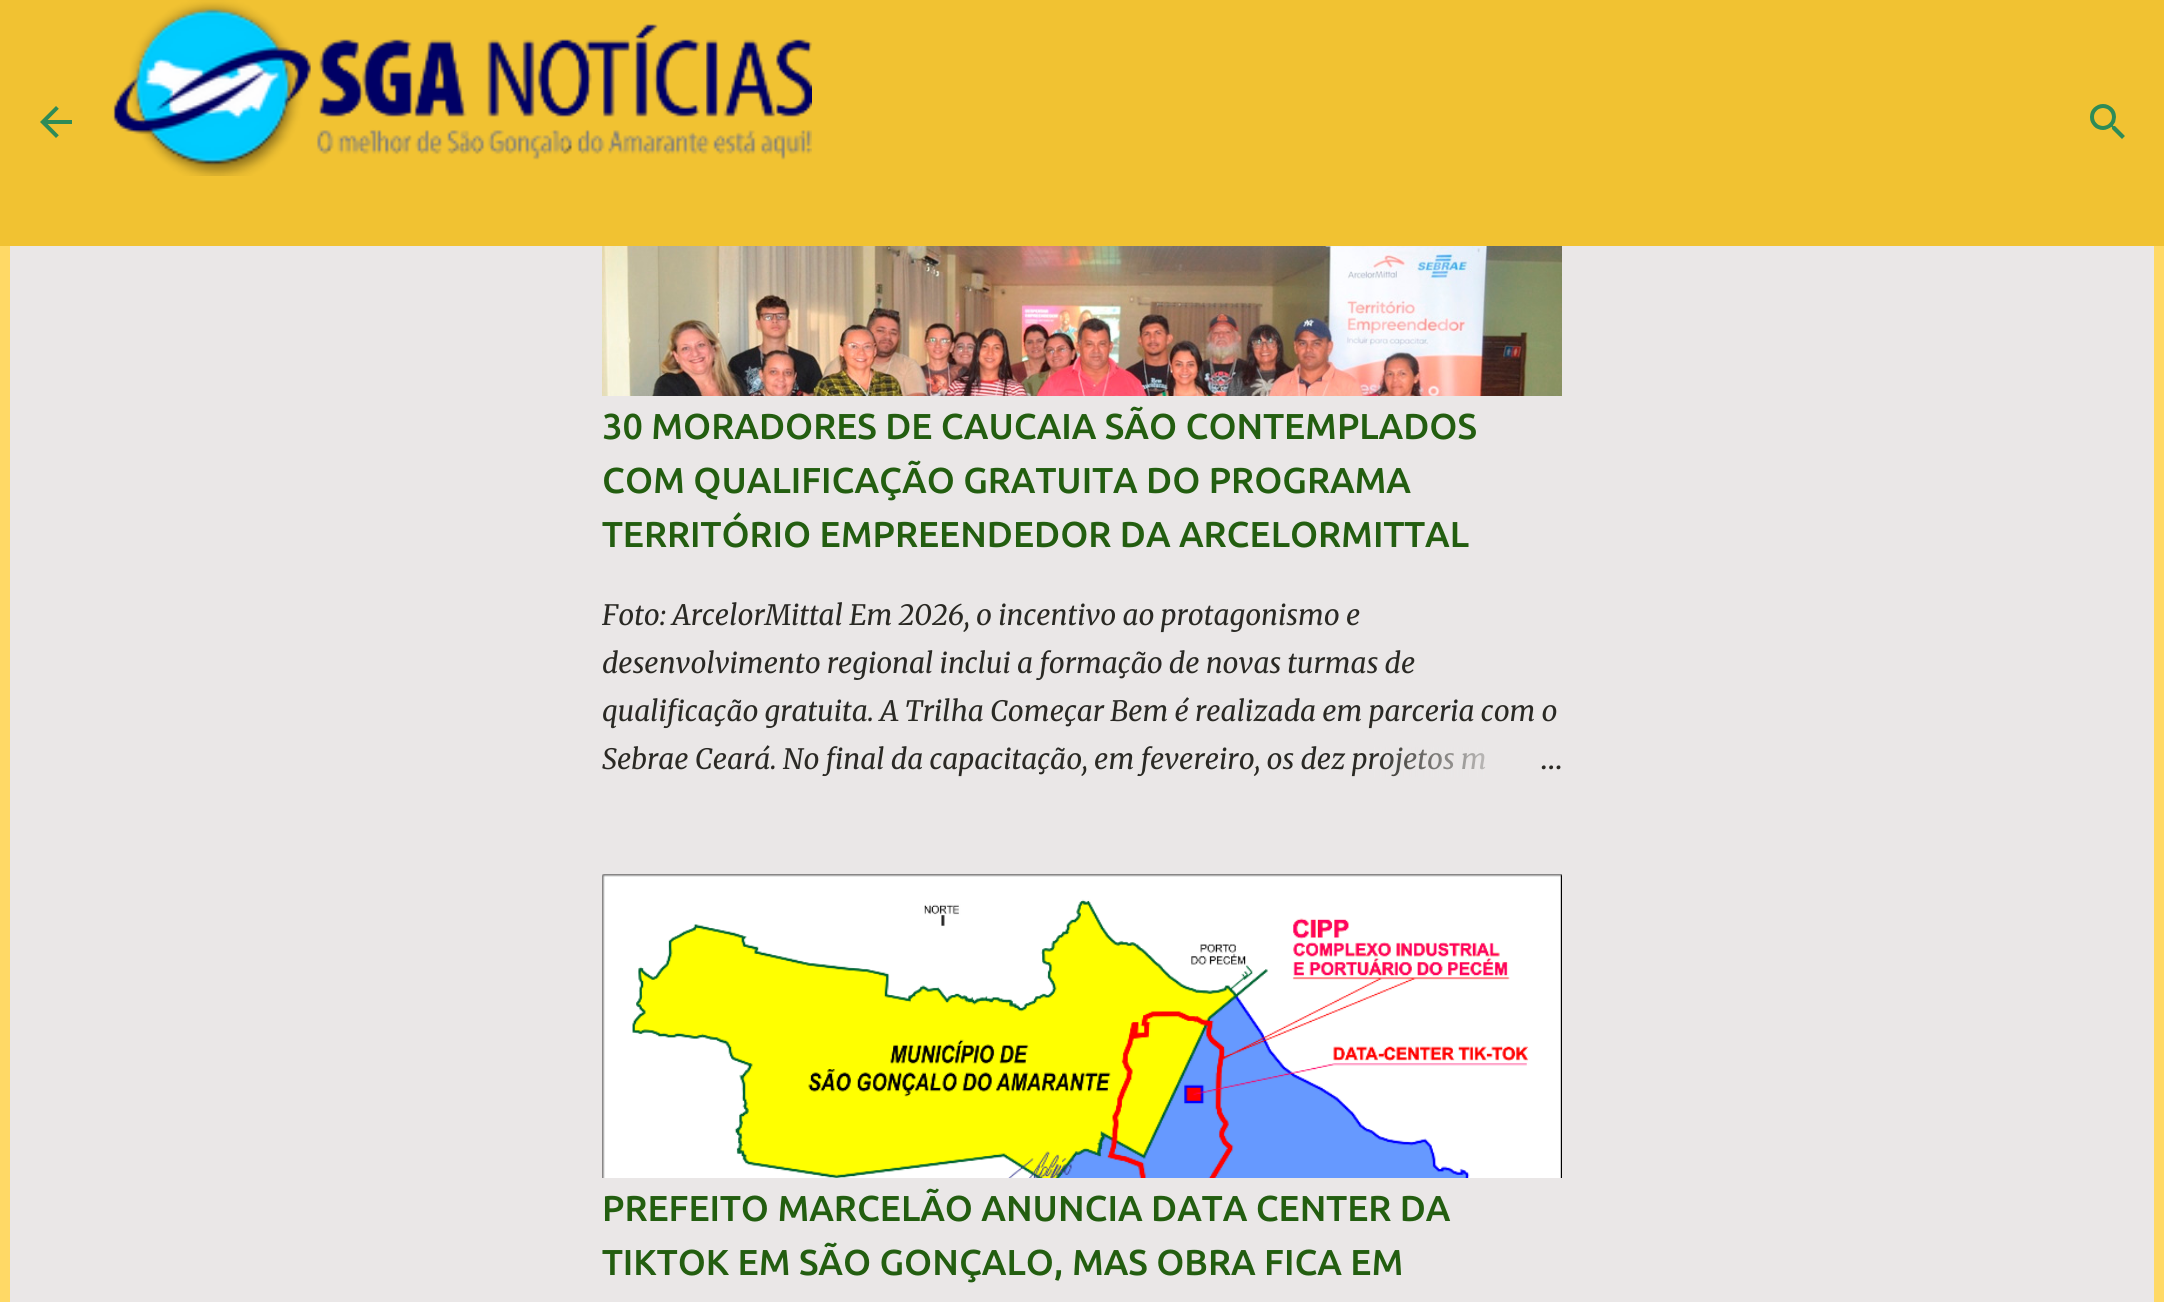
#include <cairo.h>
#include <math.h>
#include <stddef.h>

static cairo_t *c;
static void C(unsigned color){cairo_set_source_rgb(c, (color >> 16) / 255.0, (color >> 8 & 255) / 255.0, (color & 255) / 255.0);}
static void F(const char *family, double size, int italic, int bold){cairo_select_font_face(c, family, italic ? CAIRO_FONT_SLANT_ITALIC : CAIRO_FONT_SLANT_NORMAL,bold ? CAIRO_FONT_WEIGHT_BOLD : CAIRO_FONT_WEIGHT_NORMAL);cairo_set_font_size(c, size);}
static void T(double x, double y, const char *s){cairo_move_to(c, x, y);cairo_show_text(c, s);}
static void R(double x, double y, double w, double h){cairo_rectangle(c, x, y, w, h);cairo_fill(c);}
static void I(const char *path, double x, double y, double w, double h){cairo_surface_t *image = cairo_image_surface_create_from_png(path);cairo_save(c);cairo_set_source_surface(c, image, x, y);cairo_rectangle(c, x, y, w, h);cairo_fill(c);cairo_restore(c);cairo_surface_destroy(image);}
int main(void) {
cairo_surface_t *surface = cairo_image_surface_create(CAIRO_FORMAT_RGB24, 2164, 1302);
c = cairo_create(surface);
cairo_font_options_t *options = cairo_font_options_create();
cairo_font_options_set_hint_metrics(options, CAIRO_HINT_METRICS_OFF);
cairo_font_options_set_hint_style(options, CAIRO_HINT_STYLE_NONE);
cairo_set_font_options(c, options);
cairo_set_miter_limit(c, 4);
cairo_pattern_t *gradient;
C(0xffd966);
cairo_paint(c);
C(0xf1c232);
R(0,0,2164,246);
I("1.png",40,106,32,32);
I("2.png",113,0,699,176);
I("3.png",2090,104,35,35);
C(0xeae7e7);
R(10,246,2144,1056);
I("4.png",602,246,960,150);
F("Ubuntu Medium",36,0,0);
C(0x235e10);
T(602,439,"30 MORADORES DE CAUCAIA SÃO CONTEMPLADOS");
T(602,493,"COM QUALIFICAÇÃO GRATUITA DO PROGRAMA");
T(602,547,"TERRITÓRIO EMPREENDEDOR DA ARCELORMITTAL");
F("Merriweather",28,1,0);
C(0x2a2924);
T(602,625,"Foto: ArcelorMittal Em 2026, o incentivo ao protagonismo e");
T(602,673,"desenvolvimento regional inclui a formação de novas turmas de");
T(602,721,"qualificação gratuita. A Trilha Começar Bem é realizada em parceria com o");
T(602,769,"Sebrae Ceará. No final da capacitação, em fevereiro, os dez projetos m");
gradient = cairo_pattern_create_linear(1562,758,1370,758);
cairo_pattern_add_color_stop_rgba(gradient,0,0.918,0.906,0.906,1);
cairo_pattern_add_color_stop_rgba(gradient,.2,0.918,0.906,0.906,1);
cairo_pattern_add_color_stop_rgba(gradient,1,0.918,0.906,0.906,0);
cairo_set_source(c,gradient);
cairo_pattern_destroy(gradient);
R(1373,747,113,30);
F("Merriweather",28,0,0);
C(0x2a2924);
T(1540,769,"…");
I("5.png",602,874,960,304);
F("Ubuntu Medium",36,0,0);
C(0x235e10);
T(602,1221,"PREFEITO MARCELÃO ANUNCIA DATA CENTER DA");
T(602,1275,"TIKTOK EM SÃO GONÇALO, MAS OBRA FICA EM");
cairo_surface_write_to_png(surface, "o.png");
cairo_font_options_destroy(options);
cairo_destroy(c);
cairo_surface_destroy(surface);
return 0;
}
